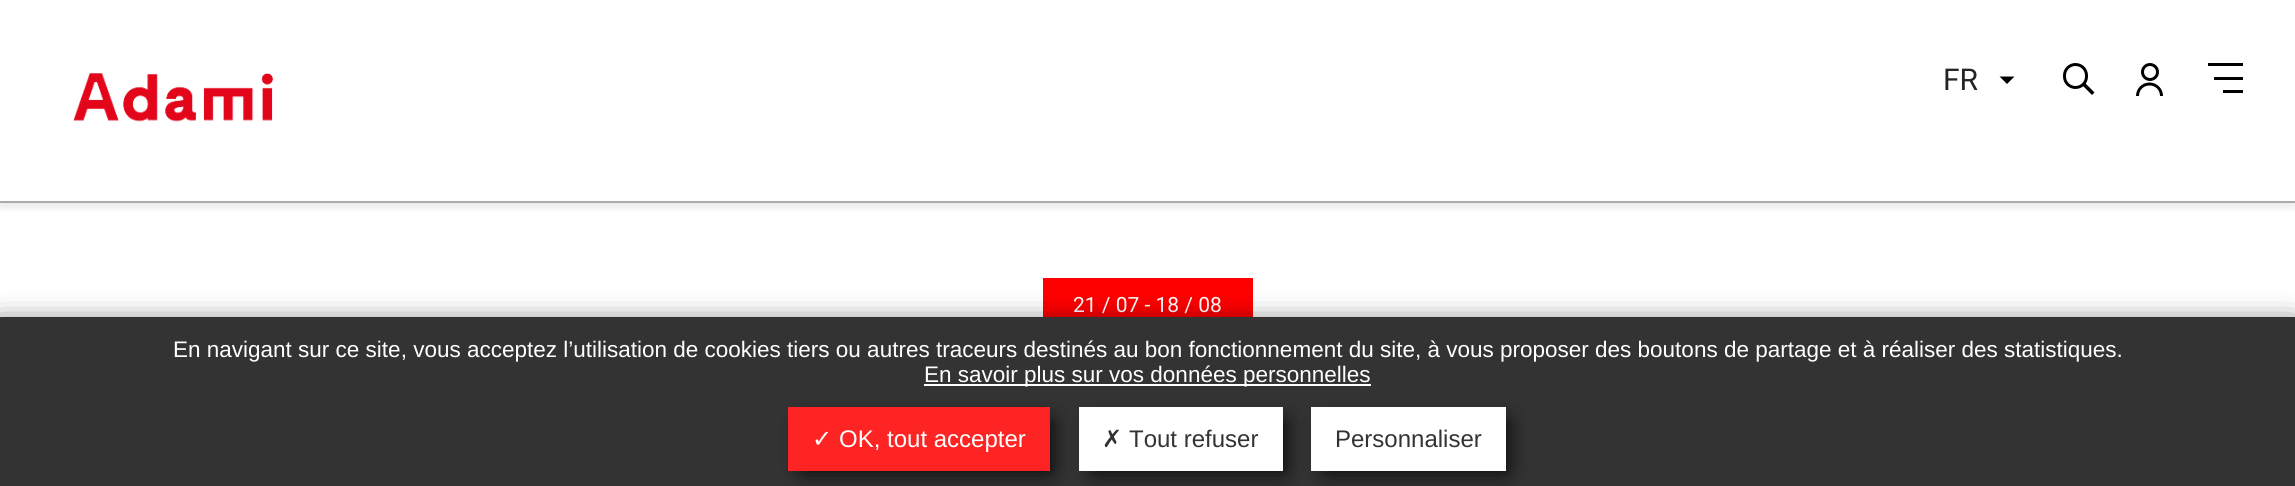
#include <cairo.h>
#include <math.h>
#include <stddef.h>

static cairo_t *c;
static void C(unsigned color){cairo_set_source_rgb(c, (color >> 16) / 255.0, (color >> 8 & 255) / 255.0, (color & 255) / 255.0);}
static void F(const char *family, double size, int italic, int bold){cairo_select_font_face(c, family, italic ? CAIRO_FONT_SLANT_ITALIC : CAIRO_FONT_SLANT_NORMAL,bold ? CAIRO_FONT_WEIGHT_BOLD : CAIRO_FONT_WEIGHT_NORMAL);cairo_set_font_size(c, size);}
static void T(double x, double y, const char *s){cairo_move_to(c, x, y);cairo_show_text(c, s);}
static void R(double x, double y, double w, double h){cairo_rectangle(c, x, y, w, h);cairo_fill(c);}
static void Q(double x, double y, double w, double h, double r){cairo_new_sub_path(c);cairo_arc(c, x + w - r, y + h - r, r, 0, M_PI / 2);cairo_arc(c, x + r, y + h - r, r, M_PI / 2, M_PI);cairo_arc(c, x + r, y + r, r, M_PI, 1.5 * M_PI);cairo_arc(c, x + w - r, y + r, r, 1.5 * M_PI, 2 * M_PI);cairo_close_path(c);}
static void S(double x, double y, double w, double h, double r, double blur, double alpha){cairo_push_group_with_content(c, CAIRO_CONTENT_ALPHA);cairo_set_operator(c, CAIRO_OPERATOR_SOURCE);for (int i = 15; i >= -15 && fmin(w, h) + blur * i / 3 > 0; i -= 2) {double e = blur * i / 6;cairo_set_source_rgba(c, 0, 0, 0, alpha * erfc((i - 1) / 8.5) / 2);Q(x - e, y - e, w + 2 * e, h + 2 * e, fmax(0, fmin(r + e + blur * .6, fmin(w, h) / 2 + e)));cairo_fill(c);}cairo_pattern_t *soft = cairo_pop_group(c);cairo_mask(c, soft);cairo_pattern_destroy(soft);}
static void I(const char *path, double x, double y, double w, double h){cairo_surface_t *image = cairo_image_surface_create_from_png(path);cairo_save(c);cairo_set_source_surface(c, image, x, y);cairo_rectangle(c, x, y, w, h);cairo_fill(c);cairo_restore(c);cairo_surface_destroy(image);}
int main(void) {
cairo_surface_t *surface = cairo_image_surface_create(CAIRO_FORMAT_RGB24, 2295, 486);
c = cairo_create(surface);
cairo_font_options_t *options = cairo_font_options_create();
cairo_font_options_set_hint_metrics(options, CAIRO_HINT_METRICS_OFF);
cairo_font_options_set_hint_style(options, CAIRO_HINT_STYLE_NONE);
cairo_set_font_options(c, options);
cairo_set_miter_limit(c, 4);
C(0xffffff);
cairo_paint(c);
cairo_save(c);
cairo_rectangle(c,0,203,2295,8);
cairo_clip(c);
C(0x000000);
S(0,5,2295,202,0,5,.1);
cairo_restore(c);
C(0xababab);
R(0,201,2295,2);
I("1.png",73,73,200,49);
F("Roboto",30,0,0);
C(0x242424);
T(1943,90,"FR");
C(0x000000);
cairo_new_path(c);
cairo_move_to(c,1999.5,76.5);
cairo_line_to(c,2014.5,76.5);
cairo_line_to(c,2007,84);
cairo_close_path(c);
cairo_fill(c);
Q(2064.5,64.5,22,23,11);
cairo_set_line_width(c,3);
cairo_stroke(c);
cairo_new_path(c);
cairo_move_to(c,2084,82);
cairo_line_to(c,2094.5,92.5);
cairo_line_to(c,2092,95);
cairo_line_to(c,2081.5,84.5);
cairo_close_path(c);
cairo_fill(c);
cairo_arc(c,2150,72,7.5,0,2 * M_PI);
cairo_stroke(c);
cairo_set_fill_rule(c,CAIRO_FILL_RULE_EVEN_ODD);
cairo_new_path(c);
cairo_move_to(c,2149.5,82.5);
cairo_curve_to(c,2157,82.5,2163,88.5,2163,96);
cairo_line_to(c,2136,96);
cairo_curve_to(c,2136,88.5,2142,82.5,2149.5,82.5);
cairo_close_path(c);
cairo_move_to(c,2149.5,85.5);
cairo_curve_to(c,2155.5,85.5,2160,90,2160,96);
cairo_line_to(c,2139,96);
cairo_curve_to(c,2139,90,2143.5,85.5,2149.5,85.5);
cairo_close_path(c);
cairo_fill(c);
R(2208,63,35,3);
R(2214,77,29,3);
R(2223,90,20,3);
C(0xff0000);
R(1043,278,210,39);
F("Roboto",21,0,0);
C(0xffffff);
T(1073,312,"21 / 07 - 18 / 08");
C(0x000000);
S(-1,329,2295,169,0,15,1);
C(0x333333);
R(0,317,2295,169);
F("Liberation Sans",22.5,0,0);
C(0xffffff);
T(173,357,"En navigant sur ce site, vous acceptez l’utilisation de cookies tiers ou autres traceurs destinés au bon fonctionnement du site, à vous proposer des boutons de partage et à réaliser des statistiques.");
R(924,384,447,2);
T(924,382,"En savoir plus sur vos données personnelles");
C(0x000000);
S(803,422,247,49,0,11,1);
C(0xff2424);
R(788,407,262,64);
F("DejaVu Sans",24,0,0);
C(0xffffff);
T(812,447,"✓");
F("Liberation Sans",24,0,0);
T(839,447,"OK, tout accepter");
C(0x000000);
S(1094,422,189,49,0,11,1);
C(0xffffff);
R(1079,407,204,64);
F("DejaVu Sans",24,0,0);
C(0x333333);
T(1102,447,"✗");
F("Liberation Sans",24,0,0);
T(1129,447,"Tout refuser");
C(0x000000);
S(1326,422,180,49,0,11,1);
C(0xffffff);
R(1311,407,195,64);
C(0x333333);
T(1335,447,"Personnaliser");
cairo_surface_write_to_png(surface, "o.png");
cairo_font_options_destroy(options);
cairo_destroy(c);
cairo_surface_destroy(surface);
return 0;
}
